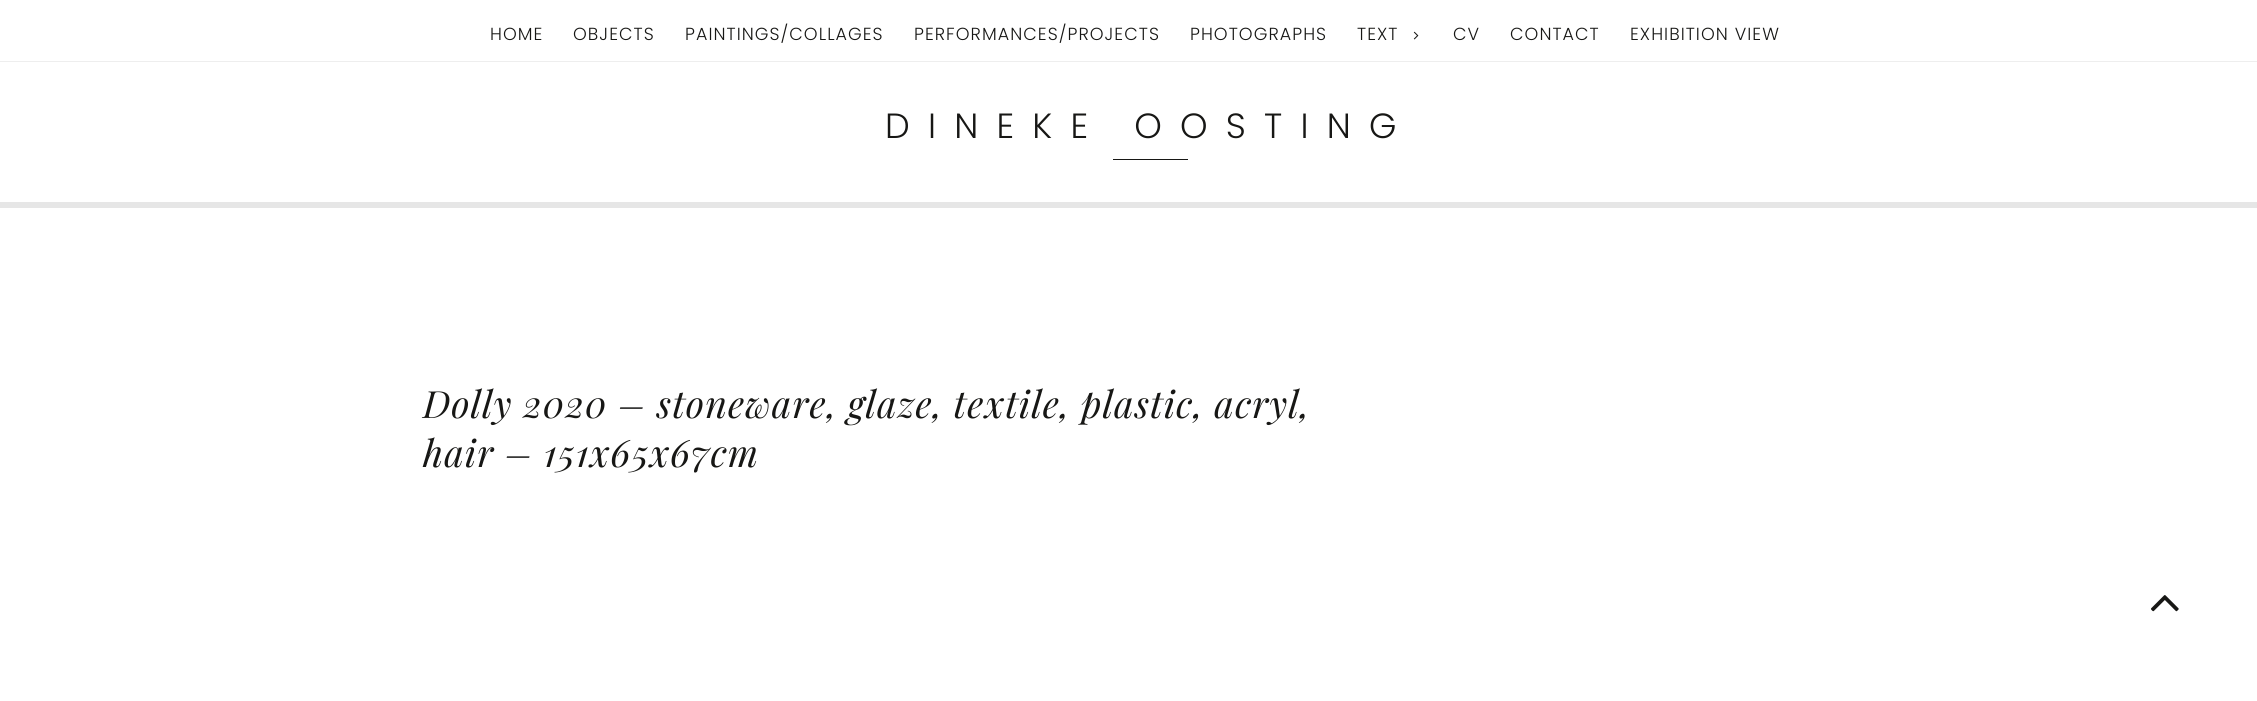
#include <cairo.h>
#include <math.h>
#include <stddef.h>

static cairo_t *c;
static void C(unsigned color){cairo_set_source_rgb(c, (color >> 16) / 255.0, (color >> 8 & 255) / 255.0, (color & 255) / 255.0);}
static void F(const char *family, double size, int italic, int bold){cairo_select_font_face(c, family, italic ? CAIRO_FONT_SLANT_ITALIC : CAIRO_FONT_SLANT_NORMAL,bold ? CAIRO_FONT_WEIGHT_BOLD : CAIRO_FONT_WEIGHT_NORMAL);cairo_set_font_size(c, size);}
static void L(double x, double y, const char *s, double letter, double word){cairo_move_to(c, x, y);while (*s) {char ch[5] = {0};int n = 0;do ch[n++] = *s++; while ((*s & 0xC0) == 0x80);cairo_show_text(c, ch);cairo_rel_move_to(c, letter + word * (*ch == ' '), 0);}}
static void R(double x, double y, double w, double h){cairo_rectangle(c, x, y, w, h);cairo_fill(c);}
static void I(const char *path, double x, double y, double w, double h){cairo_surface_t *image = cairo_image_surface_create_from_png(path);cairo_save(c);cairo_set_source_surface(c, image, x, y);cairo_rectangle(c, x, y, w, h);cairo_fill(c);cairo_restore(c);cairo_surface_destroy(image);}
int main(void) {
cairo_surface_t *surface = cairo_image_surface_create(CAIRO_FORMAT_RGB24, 2257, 701);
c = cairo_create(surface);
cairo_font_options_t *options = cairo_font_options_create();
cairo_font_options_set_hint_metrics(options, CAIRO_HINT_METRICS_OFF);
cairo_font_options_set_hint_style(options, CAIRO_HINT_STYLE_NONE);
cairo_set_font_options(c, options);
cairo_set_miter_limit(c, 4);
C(0xffffff);
cairo_paint(c);
C(0xeeeeee);
R(0,61,2257,1);
F("Poppins Light",17.5,0,0);
C(0x171715);
L(490,40,"HOME",1.05,0);
L(573,40,"OBJECTS",1.05,0);
L(685,40,"PAINTINGS/COLLAGES",1.05,0);
L(914,40,"PERFORMANCES/PROJECTS",1.05,0);
L(1190,40,"PHOTOGRAPHS",1.05,0);
L(1357,40,"TEXT",1.05,0);
I("1.png",1413,31,6,9);
L(1453,40,"CV",1.05,0);
L(1510,40,"CONTACT",1.05,0);
L(1630,40,"EXHIBITION VIEW",1.05,0);
C(0xe6e6e6);
cairo_new_path(c);
cairo_move_to(c,0,202);
cairo_line_to(c,0,208);
cairo_line_to(c,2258,208);
cairo_line_to(c,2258,68);
cairo_line_to(c,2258,202);
cairo_close_path(c);
cairo_fill(c);
F("Poppins Light",35,0,0);
C(0x171715);
L(885,138,"DINEKE OOSTING",18.25,0);
R(1113,159,75,1);
F("Playfair Display",37.5,1,0);
L(423,418,"Dolly 2020 – stoneware, glaze, textile, plastic, acryl,",1.05,0);
L(423,467,"hair – 151x65x67cm",1.05,0);
I("2.png",2151,595,28,17);
cairo_surface_write_to_png(surface, "o.png");
cairo_font_options_destroy(options);
cairo_destroy(c);
cairo_surface_destroy(surface);
return 0;
}
